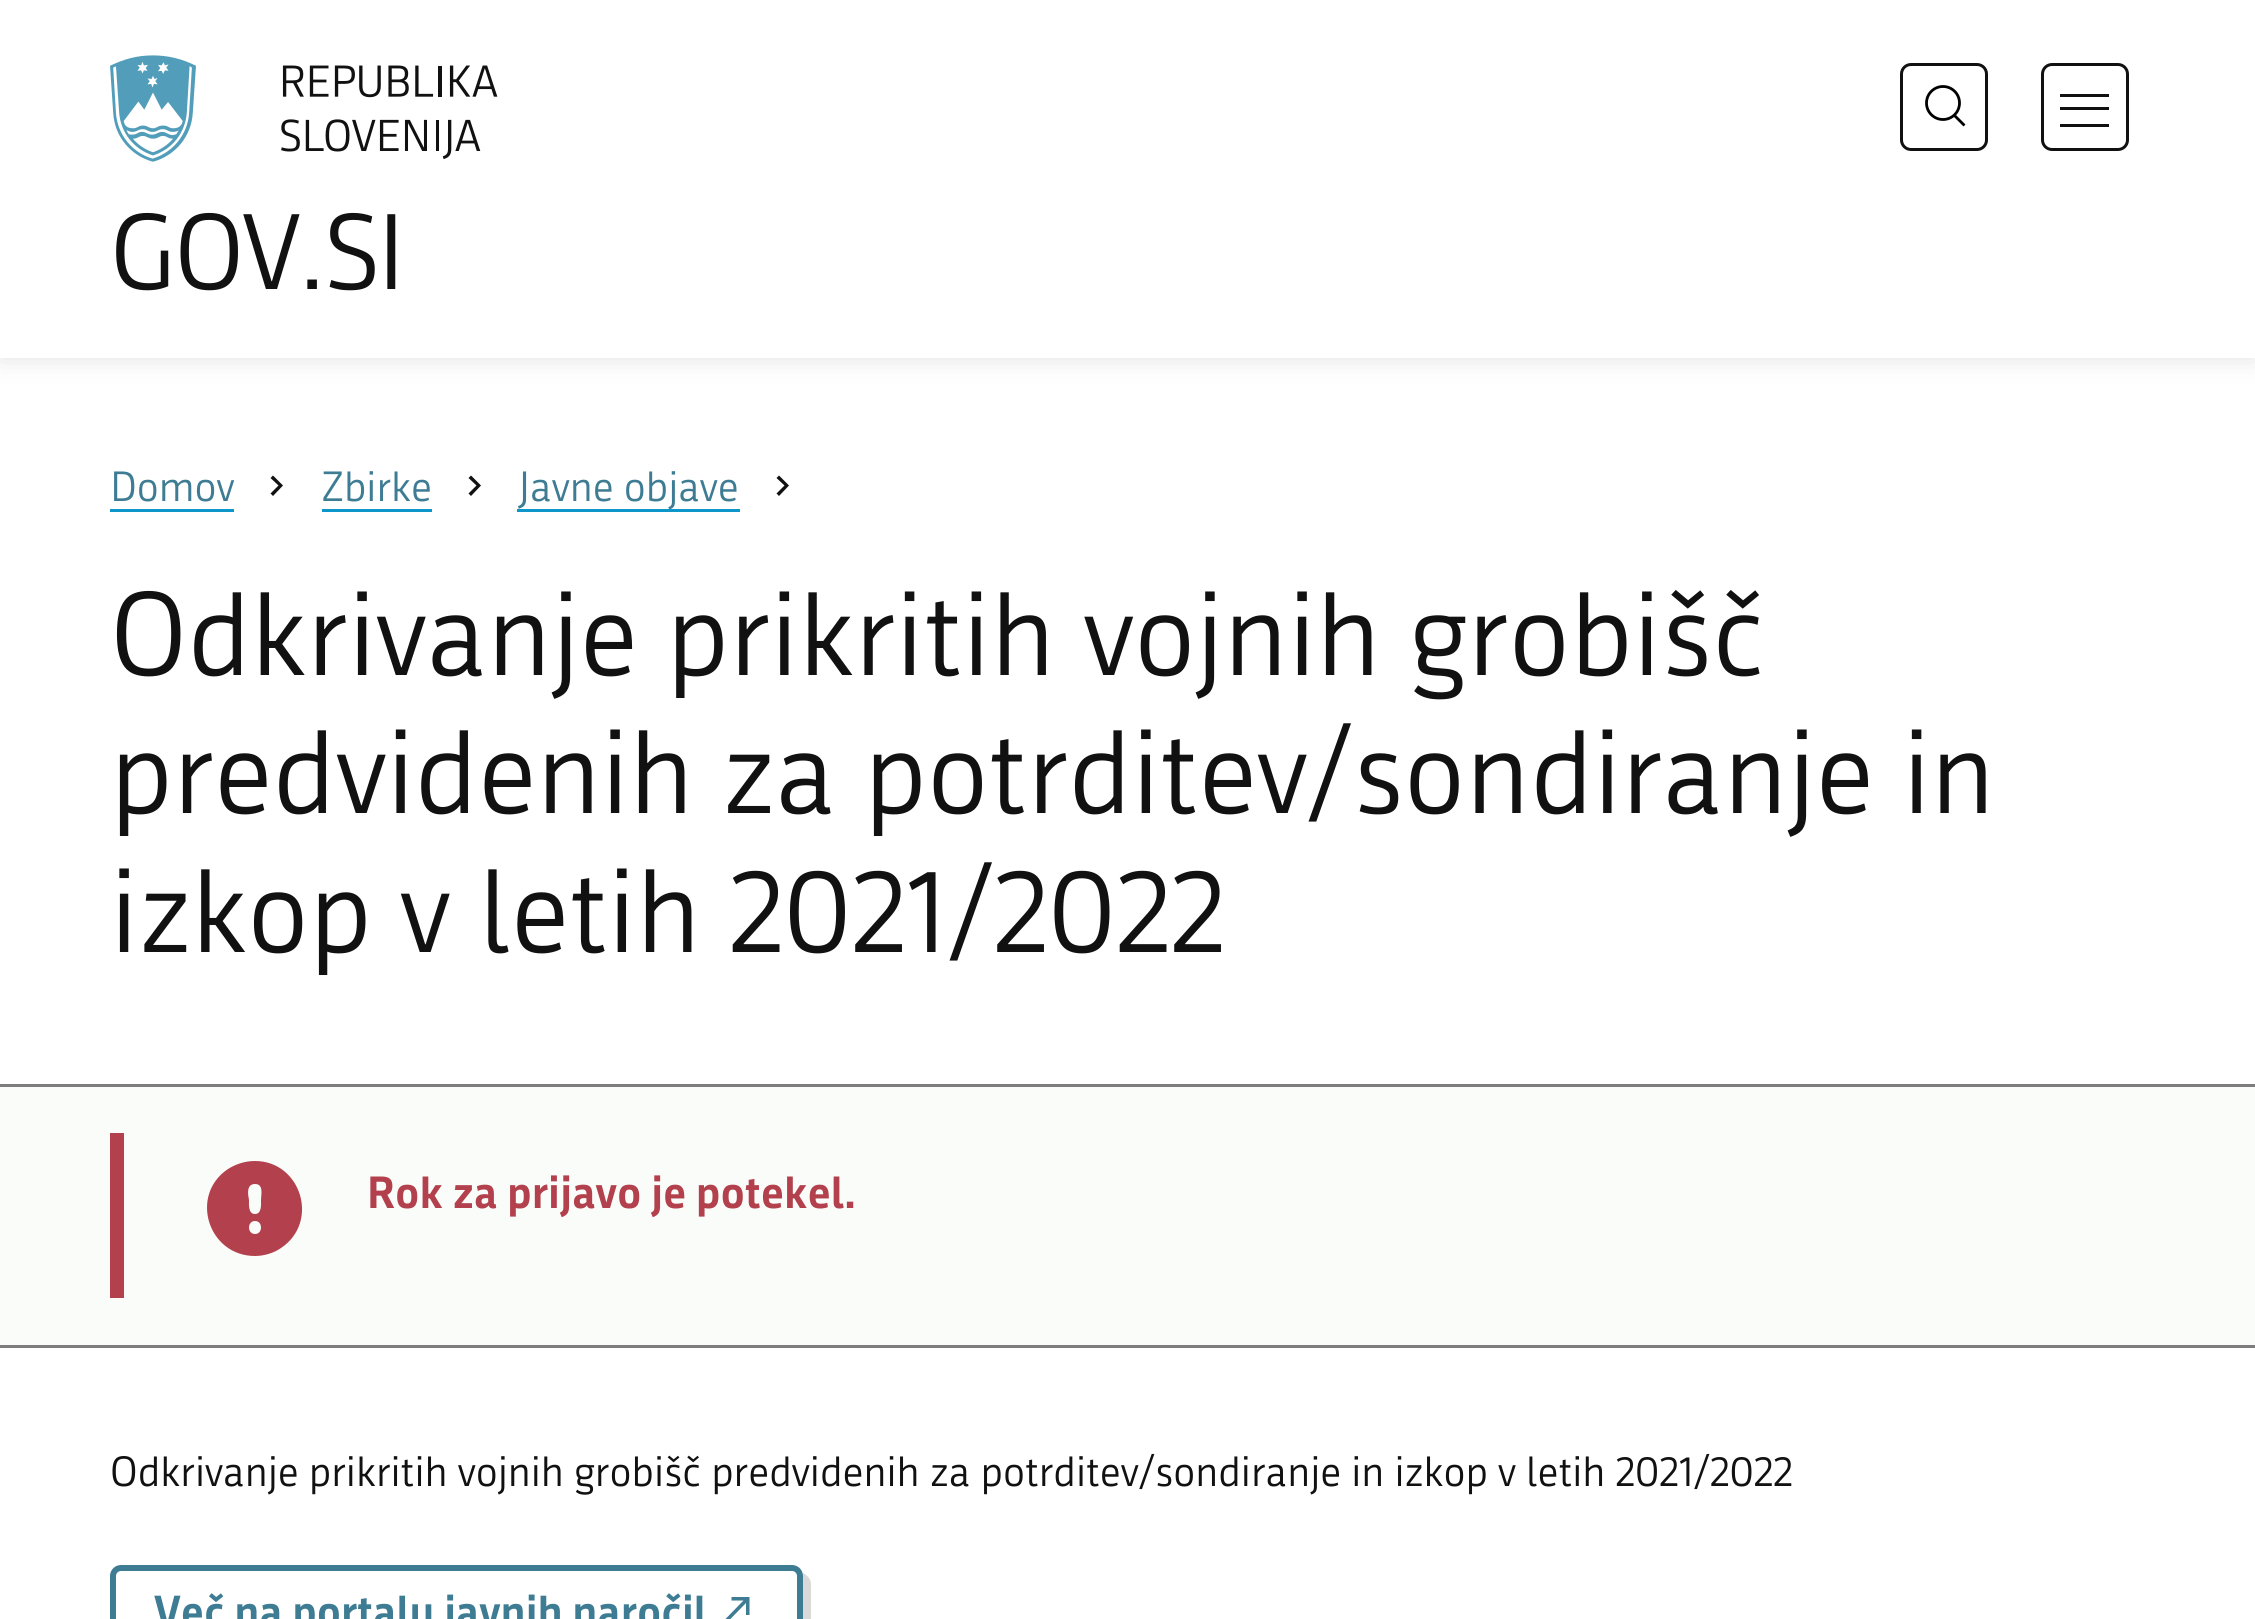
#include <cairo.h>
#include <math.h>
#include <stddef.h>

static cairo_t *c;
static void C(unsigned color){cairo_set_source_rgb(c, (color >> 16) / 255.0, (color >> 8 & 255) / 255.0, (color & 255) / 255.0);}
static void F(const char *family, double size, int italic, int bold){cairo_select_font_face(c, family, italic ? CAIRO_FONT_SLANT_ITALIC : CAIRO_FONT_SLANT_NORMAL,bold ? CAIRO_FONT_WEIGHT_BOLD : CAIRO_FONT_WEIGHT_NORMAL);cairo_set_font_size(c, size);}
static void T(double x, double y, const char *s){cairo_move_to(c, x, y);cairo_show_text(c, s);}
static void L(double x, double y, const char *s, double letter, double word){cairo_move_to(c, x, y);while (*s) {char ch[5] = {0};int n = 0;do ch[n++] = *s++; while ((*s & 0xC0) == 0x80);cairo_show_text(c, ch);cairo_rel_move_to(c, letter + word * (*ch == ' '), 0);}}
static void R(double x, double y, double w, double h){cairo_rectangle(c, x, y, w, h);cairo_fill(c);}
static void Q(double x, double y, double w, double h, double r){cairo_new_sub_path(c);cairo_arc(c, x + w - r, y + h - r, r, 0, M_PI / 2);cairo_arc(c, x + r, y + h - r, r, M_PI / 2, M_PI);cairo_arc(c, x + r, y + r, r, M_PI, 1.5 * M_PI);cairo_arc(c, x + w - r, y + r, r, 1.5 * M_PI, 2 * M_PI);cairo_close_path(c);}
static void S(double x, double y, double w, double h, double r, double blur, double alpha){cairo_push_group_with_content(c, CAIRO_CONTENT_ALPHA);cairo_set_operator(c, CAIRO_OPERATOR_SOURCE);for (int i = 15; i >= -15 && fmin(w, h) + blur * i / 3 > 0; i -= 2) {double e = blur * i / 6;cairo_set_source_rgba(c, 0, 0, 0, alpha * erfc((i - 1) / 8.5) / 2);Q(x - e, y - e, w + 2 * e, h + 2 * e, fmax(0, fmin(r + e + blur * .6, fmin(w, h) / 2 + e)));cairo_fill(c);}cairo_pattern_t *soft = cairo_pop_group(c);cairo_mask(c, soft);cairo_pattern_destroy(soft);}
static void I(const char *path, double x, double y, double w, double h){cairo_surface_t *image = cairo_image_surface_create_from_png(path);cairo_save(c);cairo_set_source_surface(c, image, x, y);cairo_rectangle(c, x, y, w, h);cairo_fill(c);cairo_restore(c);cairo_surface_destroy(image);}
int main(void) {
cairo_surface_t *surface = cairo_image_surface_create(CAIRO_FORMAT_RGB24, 2255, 1619);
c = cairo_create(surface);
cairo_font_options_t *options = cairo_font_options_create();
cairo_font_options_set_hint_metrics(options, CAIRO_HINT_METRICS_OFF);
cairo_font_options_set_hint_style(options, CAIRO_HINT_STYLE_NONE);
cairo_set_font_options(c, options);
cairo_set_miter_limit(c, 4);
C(0xffffff);
cairo_paint(c);
C(0x000000);
S(0,0,2255,358,0,14,.12);
C(0xffffff);
R(0,0,2255,358);
Q(1901.5,64.5,85,85,9.5);
C(0x111111);
cairo_set_line_width(c,3);
cairo_stroke(c);
cairo_arc(c,1943,103,16.5,0,2 * M_PI);
C(0x000000);
cairo_set_line_width(c,2.8);
cairo_stroke(c);
cairo_new_path(c);
cairo_move_to(c,1953.5,114.5);
cairo_line_to(c,1964.5,125.5);
cairo_stroke(c);
Q(2042.5,64.5,85,85,9.5);
C(0x111111);
cairo_set_line_width(c,3);
cairo_stroke(c);
R(2060,124,49,3);
R(2060,94,49,3);
R(2060,107,49,3);
I("1.png",110,55,388,107);
F("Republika",104.5,0,0);
L(110,289,"GOV.SI",-2,0);
F("Republika",41.25,0,0);
C(0x3e7c94);
T(110,501,"Domov");
C(0x0d96ca);
R(110,509,124,3);
C(0x111111);
cairo_new_path(c);
cairo_move_to(c,270.5,493.5);
cairo_line_to(c,278.5,485.5);
cairo_line_to(c,270.5,478);
cairo_line_to(c,273,475.5);
cairo_line_to(c,283,485.5);
cairo_line_to(c,273,496);
cairo_close_path(c);
cairo_fill(c);
C(0x3e7c94);
T(321,501,"Zbirke");
C(0x0d96ca);
R(322,509,110,3);
C(0x111111);
cairo_new_path(c);
cairo_move_to(c,468.5,493.5);
cairo_line_to(c,476.5,485.5);
cairo_line_to(c,468.5,478);
cairo_line_to(c,471,475.5);
cairo_line_to(c,481,485.5);
cairo_line_to(c,471,496);
cairo_close_path(c);
cairo_fill(c);
C(0x0d96ca);
R(517,509,223,3);
C(0x3e7c94);
T(518,501,"Javne objave");
C(0x111111);
cairo_new_path(c);
cairo_move_to(c,776.5,493.5);
cairo_line_to(c,784.5,485.5);
cairo_line_to(c,776.5,478);
cairo_line_to(c,779,475.5);
cairo_line_to(c,789,485.5);
cairo_line_to(c,779,496);
cairo_close_path(c);
cairo_fill(c);
F("Republika",115.5,0,0);
T(110,675,"Odkrivanje prikritih vojnih grobišč");
T(110,813,"predvidenih za potrditev/sondiranje in");
T(110,952,"izkop v letih 2021/2022");
C(0xfafcfa);
R(0,1087,2255,258);
C(0x7d7d7d);
R(0,1084,2255,3);
R(0,1345,2255,3);
C(0xb2414d);
R(110,1133,14,165);
cairo_new_path(c);
cairo_move_to(c,255,1256);
cairo_curve_to(c,208,1256,189,1195,228,1169);
cairo_curve_to(c,236,1164,245,1161,255,1161);
cairo_curve_to(c,301,1161,320,1222,281,1248);
cairo_curve_to(c,274,1253,264,1256,255,1256);
cairo_close_path(c);
cairo_move_to(c,255,1184);
cairo_curve_to(c,246,1184,248,1195,249,1200);
cairo_curve_to(c,249,1204,248,1214,255,1214);
cairo_curve_to(c,262,1214,261,1204,261,1200);
cairo_curve_to(c,261,1195,264,1184,255,1184);
cairo_close_path(c);
cairo_move_to(c,255,1234);
cairo_curve_to(c,263,1234,263,1221,255,1221);
cairo_curve_to(c,247,1221,247,1234,255,1234);
cairo_close_path(c);
cairo_fill(c);
F("Republika",44,0,1);
T(367,1208,"Rok za prijavo je potekel.");
F("Republika",41.25,0,0);
C(0x111111);
T(110,1486,"Odkrivanje prikritih vojnih grobišč predvidenih za potrditev/sondiranje in izkop v letih 2021/2022");
C(0xd9d9d9);
cairo_new_path(c);
cairo_move_to(c,118,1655);
cairo_curve_to(c,119,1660,124,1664,129,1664);
cairo_line_to(c,800,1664);
cairo_curve_to(c,806,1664,811,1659,811,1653);
cairo_line_to(c,811,1584);
cairo_curve_to(c,811,1579,807,1575,803,1573);
cairo_line_to(c,803,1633);
cairo_curve_to(c,803,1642,805,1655,792,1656);
cairo_close_path(c);
cairo_fill(c);
Q(113,1568,687,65,8);
C(0x3e7c94);
cairo_set_line_width(c,6);
cairo_stroke(c);
F("Republika",43.75,0,1);
T(154,1627,"Več na portalu javnih naročil");
cairo_new_path(c);
cairo_move_to(c,731.5,1597);
cairo_line_to(c,749.5,1597);
cairo_line_to(c,749.5,1615);
cairo_line_to(c,746,1615);
cairo_line_to(c,746,1603);
cairo_line_to(c,725,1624.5);
cairo_line_to(c,722.5,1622);
cairo_line_to(c,743.5,1600.5);
cairo_line_to(c,731.5,1600.5);
cairo_close_path(c);
cairo_fill(c);
cairo_surface_write_to_png(surface, "o.png");
cairo_font_options_destroy(options);
cairo_destroy(c);
cairo_surface_destroy(surface);
return 0;
}
